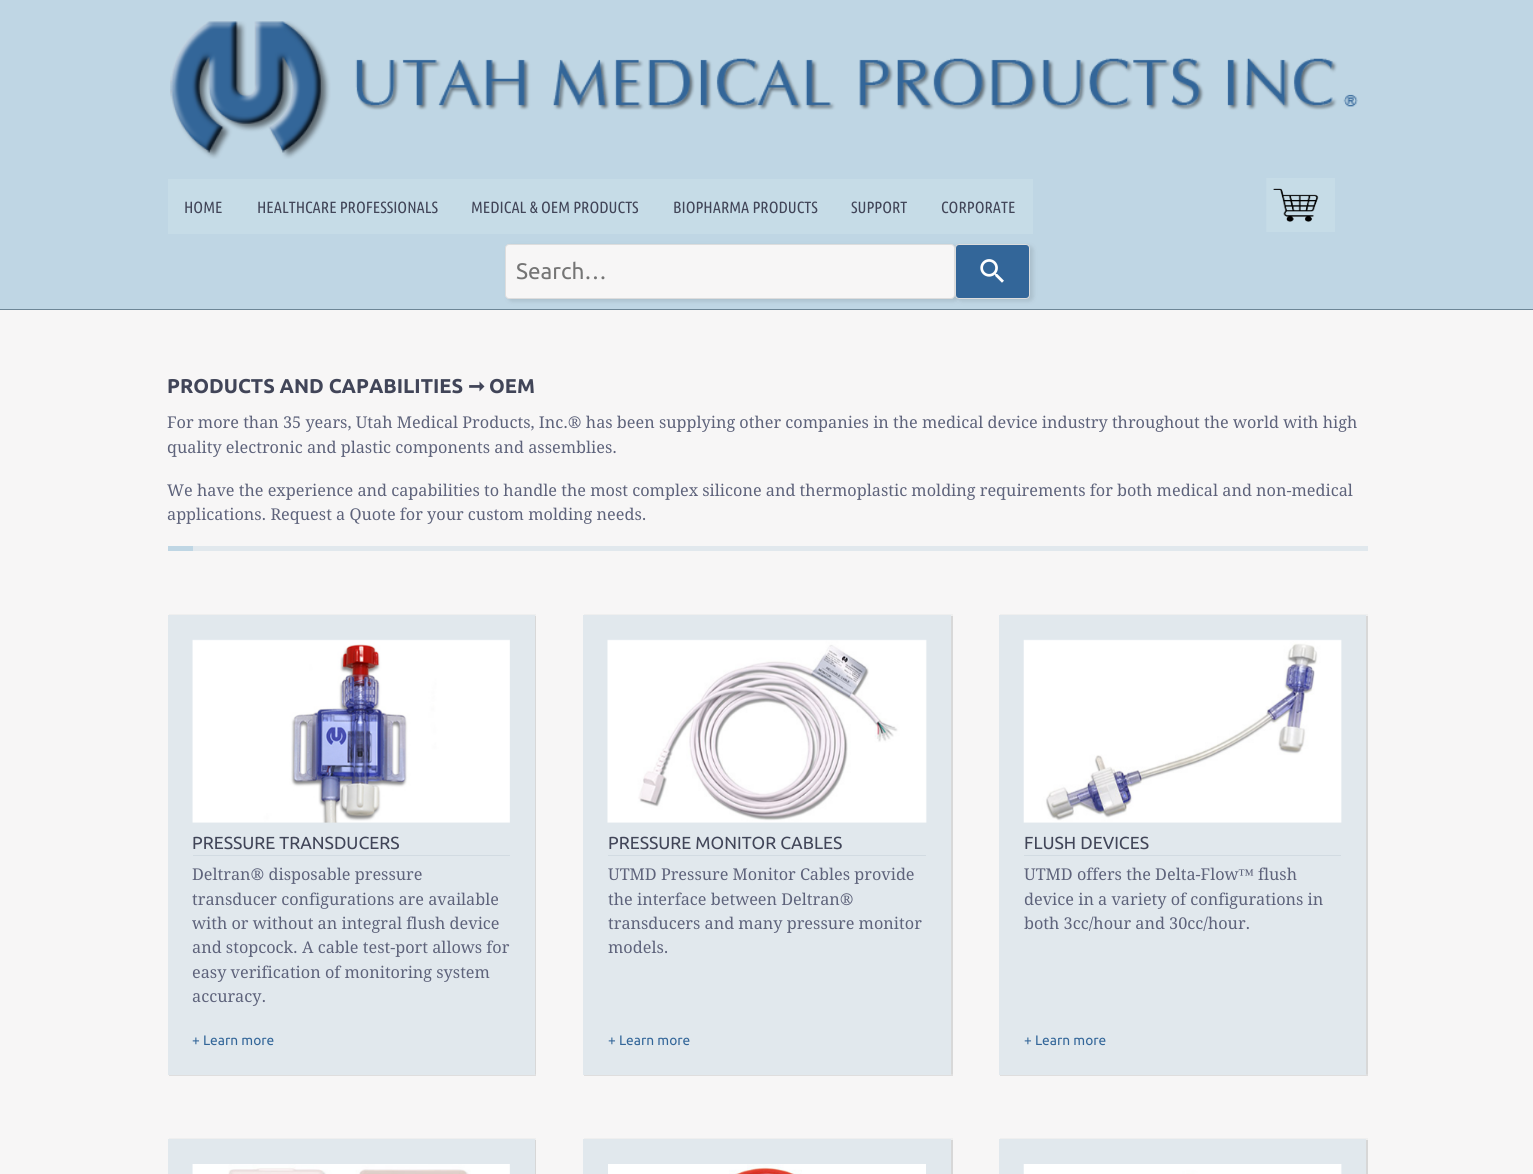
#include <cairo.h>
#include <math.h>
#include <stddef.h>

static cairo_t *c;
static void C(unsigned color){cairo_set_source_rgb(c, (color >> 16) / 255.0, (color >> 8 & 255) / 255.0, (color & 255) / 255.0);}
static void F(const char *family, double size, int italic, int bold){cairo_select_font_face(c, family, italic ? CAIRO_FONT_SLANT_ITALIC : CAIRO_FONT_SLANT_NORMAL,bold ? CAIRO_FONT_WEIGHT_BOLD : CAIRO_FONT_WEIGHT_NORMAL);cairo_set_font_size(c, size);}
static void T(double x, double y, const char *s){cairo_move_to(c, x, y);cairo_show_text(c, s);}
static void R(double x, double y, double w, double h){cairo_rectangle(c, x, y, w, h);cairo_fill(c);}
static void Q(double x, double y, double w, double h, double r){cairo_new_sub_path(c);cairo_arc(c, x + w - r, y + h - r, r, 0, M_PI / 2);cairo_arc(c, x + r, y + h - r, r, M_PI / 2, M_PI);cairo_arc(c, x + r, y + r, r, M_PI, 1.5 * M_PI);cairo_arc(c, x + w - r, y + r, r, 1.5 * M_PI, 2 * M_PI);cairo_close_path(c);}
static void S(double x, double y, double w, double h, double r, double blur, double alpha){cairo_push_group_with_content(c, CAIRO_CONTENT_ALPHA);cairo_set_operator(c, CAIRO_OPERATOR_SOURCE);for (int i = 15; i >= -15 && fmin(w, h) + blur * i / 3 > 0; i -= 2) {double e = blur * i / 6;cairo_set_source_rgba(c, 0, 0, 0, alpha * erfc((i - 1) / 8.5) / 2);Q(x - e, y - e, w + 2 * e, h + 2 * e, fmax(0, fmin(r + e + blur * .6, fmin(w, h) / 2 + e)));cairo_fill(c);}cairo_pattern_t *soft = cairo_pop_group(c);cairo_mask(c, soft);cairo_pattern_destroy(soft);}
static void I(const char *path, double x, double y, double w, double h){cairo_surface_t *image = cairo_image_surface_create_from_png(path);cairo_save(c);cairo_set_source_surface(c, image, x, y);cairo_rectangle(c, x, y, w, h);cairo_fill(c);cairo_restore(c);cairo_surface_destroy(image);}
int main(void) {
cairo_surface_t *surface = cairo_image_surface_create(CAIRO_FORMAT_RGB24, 1533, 1174);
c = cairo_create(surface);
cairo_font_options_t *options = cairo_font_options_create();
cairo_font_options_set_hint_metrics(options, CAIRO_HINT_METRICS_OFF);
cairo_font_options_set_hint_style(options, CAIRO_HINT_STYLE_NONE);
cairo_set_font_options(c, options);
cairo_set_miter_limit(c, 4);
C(0xf7f6f6);
cairo_paint(c);
C(0xbfd6e4);
R(0,0,1533,309);
C(0x6d8696);
R(0,309,1533,1);
I("1.png",170,21,1188,138);
C(0xc6dce7);
R(168,179,865,55);
F("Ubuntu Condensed",16.25,0,0);
C(0x414558);
T(184,213,"HOME");
T(257,213,"HEALTHCARE PROFESSIONALS");
T(471,213,"MEDICAL & OEM PRODUCTS");
T(673,213,"BIOPHARMA PRODUCTS");
T(851,213,"SUPPORT");
T(941,213,"CORPORATE");
C(0x000000);
S(508,246,450,55,4,2.5,.12);
C(0xf7f6f6);
Q(505.5,244.5,449,54,3.5);
cairo_fill_preserve(c);
C(0xdddddd);
cairo_set_line_width(c,1);
cairo_stroke(c);
F("Ubuntu",22.5,0,0);
C(0x757575);
T(516,279,"Search…");
C(0x000000);
S(958,246,75,55,4,2.5,.12);
C(0x336699);
Q(955.5,244.5,74,54,3.5);
cairo_fill_preserve(c);
C(0xdddddd);
cairo_stroke(c);
I("2.png",980,259,24,24);
I("3.png",1266,178,69,54);
F("Ubuntu",20,0,1);
C(0x414558);
T(167,393,"PRODUCTS AND CAPABILITIES");
F("DejaVu Sans",20,0,1);
T(468,393,"➞");
F("Ubuntu",20,0,1);
T(489,393,"OEM");
F("Droid Serif",16.25,0,0);
C(0x5e637b);
T(167,428,"For more than 35 years, Utah Medical Products, Inc.® has been supplying other companies in the medical device industry throughout the world with high");
T(167,453,"quality electronic and plastic components and assemblies.");
T(167,496,"We have the experience and capabilities to handle the most complex silicone and thermoplastic molding requirements for both medical and non-medical");
T(167,520,"applications. Request a Quote for your custom molding needs.");
C(0xe1e8ed);
R(193,546,1175,5);
C(0xbfd6e4);
R(168,546,25,5);
C(0xefefef);
cairo_new_path(c);
cairo_move_to(c,169,614);
cairo_line_to(c,169,615);
cairo_line_to(c,535,615);
cairo_line_to(c,535,1074);
cairo_line_to(c,536,1074);
cairo_line_to(c,536,614);
cairo_close_path(c);
cairo_fill(c);
cairo_set_source_rgba(c,0,0,0,0.1);
cairo_new_path(c);
cairo_move_to(c,169,1075);
cairo_line_to(c,169,1076);
cairo_line_to(c,536,1076);
cairo_line_to(c,536,616);
cairo_line_to(c,535,616);
cairo_line_to(c,535,1075);
cairo_close_path(c);
cairo_fill(c);
C(0xe1e8ed);
R(168,615,367,460);
I("4.png",192,639,318,184);
C(0xd2dbe2);
R(193,855,317,1);
F("Ubuntu",17.5,0,0);
C(0x414558);
T(192,849,"PRESSURE TRANSDUCERS");
F("Droid Serif",16.25,0,0);
C(0x5e637b);
T(192,880,"Deltran® disposable pressure");
T(192,905,"transducer configurations are available");
T(192,929,"with or without an integral flush device");
T(192,953,"and stopcock. A cable test-port allows for");
T(192,978,"easy verification of monitoring system");
T(192,1002,"accuracy.");
F("Ubuntu",13.75,0,0);
C(0x336699);
T(192,1045,"+ Learn more");
C(0xefefef);
cairo_new_path(c);
cairo_move_to(c,584,614);
cairo_line_to(c,584,615);
cairo_line_to(c,951,615);
cairo_line_to(c,951,1074);
cairo_line_to(c,953,1074);
cairo_line_to(c,953,614);
cairo_close_path(c);
cairo_fill(c);
cairo_set_source_rgba(c,0,0,0,0.1);
cairo_new_path(c);
cairo_move_to(c,584,1075);
cairo_line_to(c,584,1076);
cairo_line_to(c,953,1076);
cairo_line_to(c,953,616);
cairo_line_to(c,951,616);
cairo_line_to(c,951,1075);
cairo_close_path(c);
cairo_fill(c);
C(0xe1e8ed);
R(583,615,368,460);
I("5.png",607,639,320,184);
C(0xd2dbe2);
R(608,855,318,1);
F("Ubuntu",17.5,0,0);
C(0x414558);
T(608,849,"PRESSURE MONITOR CABLES");
F("Droid Serif",16.25,0,0);
C(0x5e637b);
T(608,880,"UTMD Pressure Monitor Cables provide");
T(608,905,"the interface between Deltran®");
T(608,929,"transducers and many pressure monitor");
T(608,953,"models.");
F("Ubuntu",13.75,0,0);
C(0x336699);
T(608,1045,"+ Learn more");
C(0xefefef);
cairo_new_path(c);
cairo_move_to(c,1000,614);
cairo_line_to(c,1000,615);
cairo_line_to(c,1366,615);
cairo_line_to(c,1366,1074);
cairo_line_to(c,1368,1074);
cairo_line_to(c,1368,614);
cairo_close_path(c);
cairo_fill(c);
cairo_set_source_rgba(c,0,0,0,0.1);
cairo_new_path(c);
cairo_move_to(c,1000,1075);
cairo_line_to(c,1000,1076);
cairo_line_to(c,1368,1076);
cairo_line_to(c,1368,616);
cairo_line_to(c,1366,616);
cairo_line_to(c,1366,1075);
cairo_close_path(c);
cairo_fill(c);
C(0xe1e8ed);
R(999,615,367,460);
I("6.png",1023,639,319,184);
C(0xd2dbe2);
R(1024,855,317,1);
F("Ubuntu",17.5,0,0);
C(0x414558);
T(1024,849,"FLUSH DEVICES");
F("Droid Serif",16.25,0,0);
C(0x5e637b);
T(1024,880,"UTMD offers the Delta-Flow");
F("Liberation Serif",16.25,0,0);
T(1238,880,"™");
F("Droid Serif",16.25,0,0);
T(1258,880,"flush");
T(1024,905,"device in a variety of configurations in");
T(1024,929,"both 3cc/hour and 30cc/hour.");
F("Ubuntu",13.75,0,0);
C(0x336699);
T(1024,1045,"+ Learn more");
C(0xefefef);
cairo_new_path(c);
cairo_move_to(c,169,1138);
cairo_line_to(c,169,1139);
cairo_line_to(c,535,1139);
cairo_line_to(c,535,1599);
cairo_line_to(c,536,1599);
cairo_line_to(c,536,1138);
cairo_close_path(c);
cairo_fill(c);
C(0xd7d7d7);
cairo_new_path(c);
cairo_move_to(c,169,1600);
cairo_line_to(c,169,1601);
cairo_line_to(c,536,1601);
cairo_line_to(c,536,1140);
cairo_line_to(c,535,1140);
cairo_line_to(c,535,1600);
cairo_close_path(c);
cairo_fill(c);
C(0xe1e8ed);
R(168,1139,367,35);
I("7.png",192,1164,318,10);
C(0xefefef);
cairo_new_path(c);
cairo_move_to(c,584,1138);
cairo_line_to(c,584,1139);
cairo_line_to(c,951,1139);
cairo_line_to(c,951,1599);
cairo_line_to(c,953,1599);
cairo_line_to(c,953,1138);
cairo_close_path(c);
cairo_fill(c);
C(0xd7d7d7);
cairo_new_path(c);
cairo_move_to(c,584,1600);
cairo_line_to(c,584,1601);
cairo_line_to(c,953,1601);
cairo_line_to(c,953,1140);
cairo_line_to(c,951,1140);
cairo_line_to(c,951,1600);
cairo_close_path(c);
cairo_fill(c);
C(0xe1e8ed);
R(583,1139,368,35);
I("8.png",608,1164,318,10);
C(0xefefef);
cairo_new_path(c);
cairo_move_to(c,1000,1138);
cairo_line_to(c,1000,1139);
cairo_line_to(c,1366,1139);
cairo_line_to(c,1366,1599);
cairo_line_to(c,1368,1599);
cairo_line_to(c,1368,1138);
cairo_close_path(c);
cairo_fill(c);
C(0xd7d7d7);
cairo_new_path(c);
cairo_move_to(c,1000,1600);
cairo_line_to(c,1000,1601);
cairo_line_to(c,1368,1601);
cairo_line_to(c,1368,1140);
cairo_line_to(c,1366,1140);
cairo_line_to(c,1366,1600);
cairo_close_path(c);
cairo_fill(c);
C(0xe1e8ed);
R(999,1139,367,35);
I("9.png",1023,1164,319,10);
cairo_surface_write_to_png(surface, "o.png");
cairo_font_options_destroy(options);
cairo_destroy(c);
cairo_surface_destroy(surface);
return 0;
}
